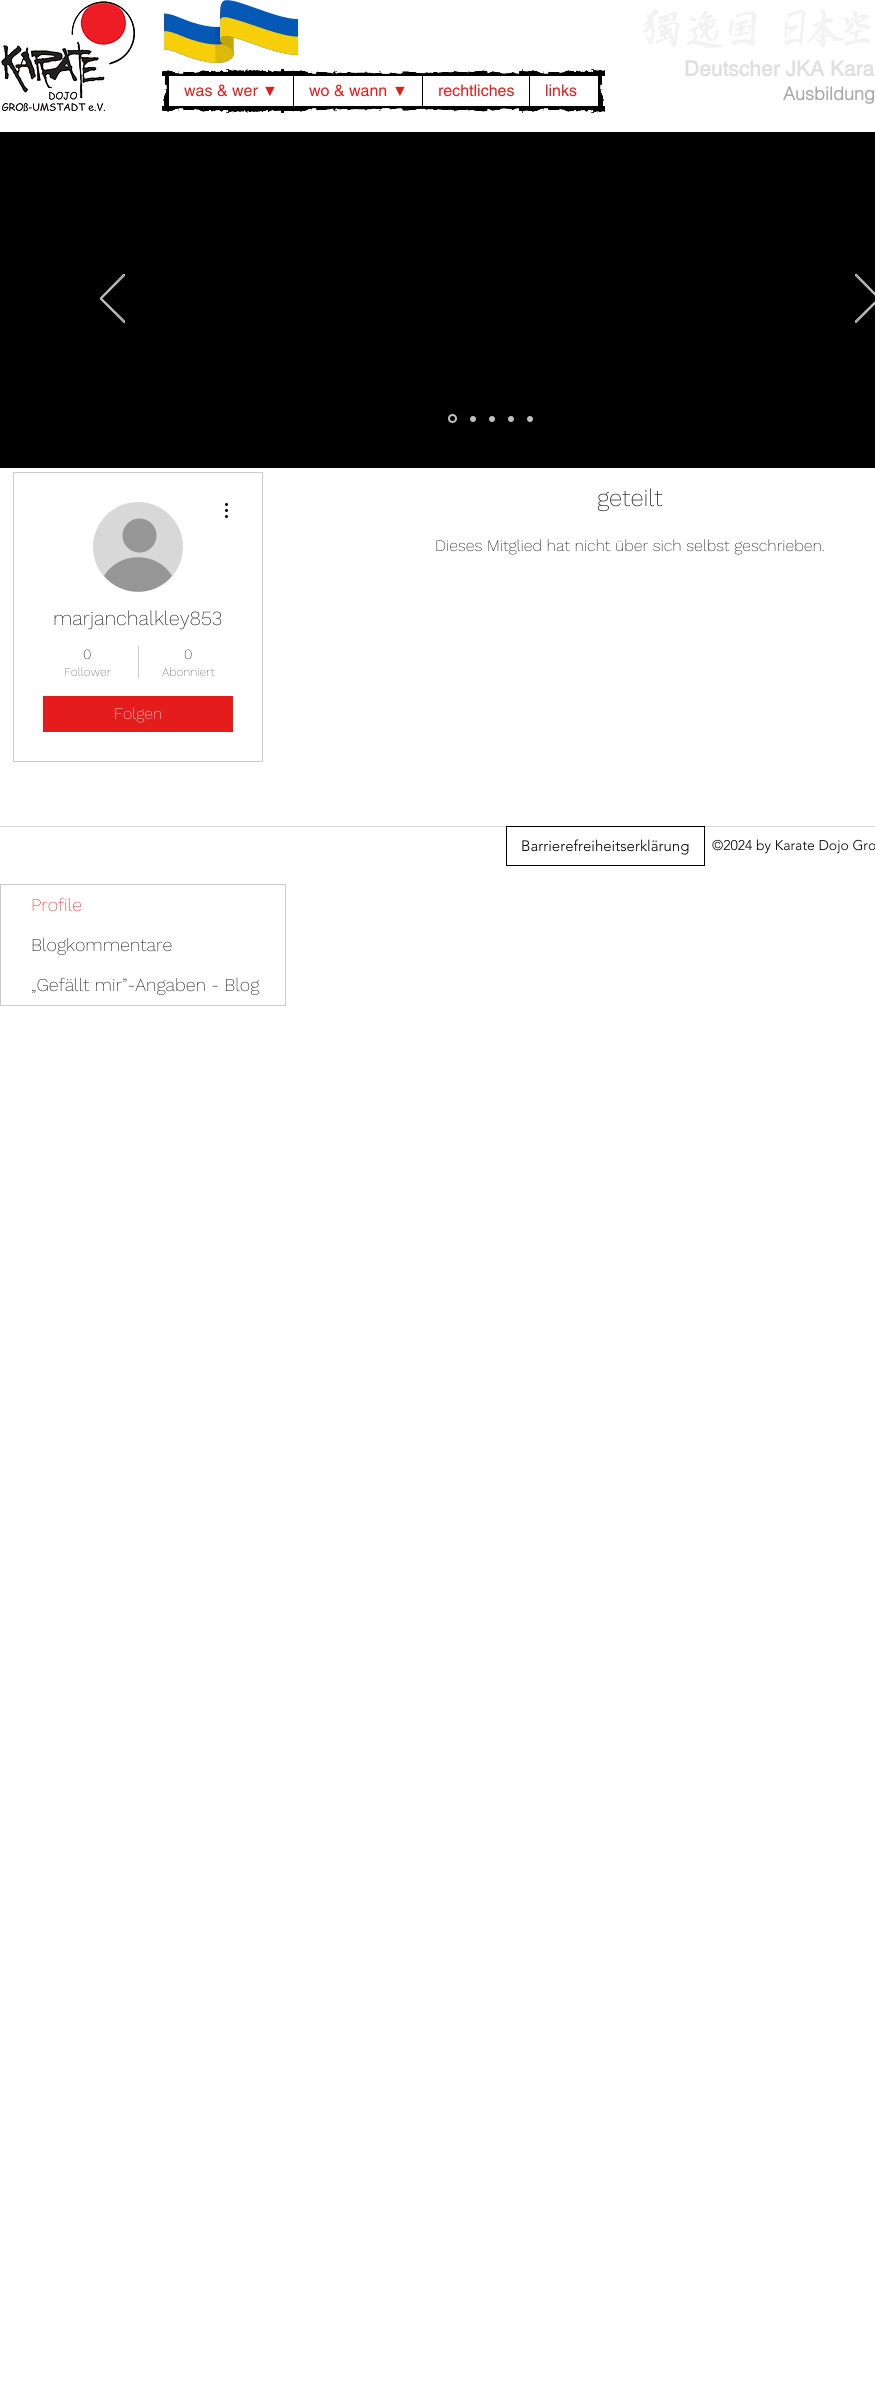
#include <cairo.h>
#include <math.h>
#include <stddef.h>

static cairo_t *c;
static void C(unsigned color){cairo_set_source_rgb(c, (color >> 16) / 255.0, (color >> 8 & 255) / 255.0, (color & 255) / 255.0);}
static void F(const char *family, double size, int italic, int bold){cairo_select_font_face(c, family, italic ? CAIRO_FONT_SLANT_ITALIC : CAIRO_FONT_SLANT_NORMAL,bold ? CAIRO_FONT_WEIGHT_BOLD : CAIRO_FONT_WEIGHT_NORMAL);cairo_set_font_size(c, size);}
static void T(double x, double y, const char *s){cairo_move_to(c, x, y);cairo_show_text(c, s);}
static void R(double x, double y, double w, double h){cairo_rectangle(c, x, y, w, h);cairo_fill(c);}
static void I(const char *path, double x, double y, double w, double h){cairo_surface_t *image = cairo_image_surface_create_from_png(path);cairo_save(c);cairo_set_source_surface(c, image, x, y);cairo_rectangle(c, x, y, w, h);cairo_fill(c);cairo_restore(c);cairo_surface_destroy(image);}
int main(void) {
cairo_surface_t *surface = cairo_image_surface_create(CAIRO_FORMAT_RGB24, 875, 2385);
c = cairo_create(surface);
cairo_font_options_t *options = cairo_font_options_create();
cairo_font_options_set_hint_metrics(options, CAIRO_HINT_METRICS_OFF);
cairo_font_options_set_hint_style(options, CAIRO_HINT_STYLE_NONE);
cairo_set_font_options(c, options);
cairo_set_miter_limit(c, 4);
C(0xffffff);
cairo_paint(c);
I("1.png",1,1,134,111);
I("2.png",164,0,134,63);
I("3.png",644,9,227,39);
F("helvetica",21,0,1);
C(0xdfdfdf);
T(684,76,"Deutscher JKA Kara");
I("4.png",162,69,443,7);
I("5.png",163,76,6,30);
F("helvetica",16,0,0);
C(0xe41c1c);
T(184,96,"was & wer");
F("Liberation Sans",16,0,0);
T(262,96,"▼");
C(0x000000);
R(293,76,1,30);
F("helvetica",16,0,0);
C(0xe41c1c);
T(309,96,"wo & wann");
F("Liberation Sans",16,0,0);
T(392,96,"▼");
C(0x000000);
R(422,76,1,30);
F("helvetica",16,0,0);
C(0xe41c1c);
T(438,96,"rechtliches");
C(0x000000);
R(529,76,1,30);
C(0xe41c1c);
T(545,96,"links");
I("6.png",598,76,6,30);
I("7.png",162,106,443,7);
F("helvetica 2",18,0,1);
C(0xaaaaaa);
T(783,100,"Ausbildung");
F("Work Sans ExtraLight",24,0,0);
C(0x000000);
T(597,506,"geteilt");
F("Work Sans ExtraLight",16,0,0);
T(435,551,"Dieses Mitglied hat nicht über sich selbst geschrieben.");
R(0,132,875,336);
cairo_save(c);
cairo_rectangle(c,100,274,25,49);
cairo_clip(c);
cairo_new_path(c);
cairo_move_to(c,124,322.5);
cairo_line_to(c,100,298.5);
cairo_line_to(c,124,274);
cairo_line_to(c,125,275);
cairo_line_to(c,101.5,298.5);
cairo_line_to(c,125,321.5);
cairo_close_path(c);
C(0xbfbfbf);
cairo_set_line_width(c,1.2);
cairo_stroke(c);
cairo_restore(c);
cairo_save(c);
cairo_rectangle(c,855,274,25,49);
cairo_clip(c);
cairo_new_path(c);
cairo_move_to(c,856,322.5);
cairo_line_to(c,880,298.5);
cairo_line_to(c,856,274);
cairo_line_to(c,855,275);
cairo_line_to(c,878.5,298.5);
cairo_line_to(c,855,321.5);
cairo_close_path(c);
C(0xbfbfbf);
cairo_set_line_width(c,1.2);
cairo_stroke(c);
cairo_restore(c);
cairo_arc(c,452.5,418.5,3.5,0,2 * M_PI);
C(0xbfbfbf);
cairo_stroke(c);
cairo_arc(c,473,419,3,0,2 * M_PI);
cairo_fill(c);
cairo_arc(c,492,419,3,0,2 * M_PI);
cairo_fill(c);
cairo_arc(c,511,419,3,0,2 * M_PI);
cairo_fill(c);
cairo_arc(c,530,419,3,0,2 * M_PI);
cairo_fill(c);
cairo_rectangle(c,13.5,472.5,249,289);
C(0xcccccc);
cairo_set_line_width(c,1);
cairo_stroke(c);
C(0xd8d8d8);
cairo_arc(c,138,547,45,0,2 * M_PI);
cairo_fill(c);
C(0x969696);
cairo_arc(c,139.5,535.5,17,0,2 * M_PI);
cairo_fill(c);
cairo_new_path(c);
cairo_move_to(c,172,576);
cairo_curve_to(c,154,597,122,597,104,576);
cairo_curve_to(c,119,551,157,551,172,576);
cairo_close_path(c);
cairo_fill(c);
I("8.png",225,503,3,15);
F("Work Sans ExtraLight",20,0,0);
C(0x000000);
T(53,625,"marjanchalkley853");
F("Work Sans ExtraLight",14,0,0);
T(83,659,"0");
F("Work Sans ExtraLight",12,0,0);
C(0x4d4d4d);
T(64,676,"Follower");
C(0xcccccc);
R(138,646,1,32);
F("Work Sans ExtraLight",14,0,0);
C(0x000000);
T(184,659,"0");
F("Work Sans ExtraLight",12,0,0);
C(0x4d4d4d);
T(162,676,"Abonniert");
C(0xe41c1c);
R(43,696,190,36);
F("Work Sans ExtraLight",16,0,0);
C(0xffffff);
T(114,719,"Folgen");
cairo_rectangle(c,.5,884.5,285,121);
C(0xcccccc);
cairo_stroke(c);
F("Work Sans ExtraLight",18,0,0);
C(0xe41c1c);
T(31,911,"Profile");
C(0x000000);
T(31,951,"Blogkommentare");
T(31,991,"„Gefällt mir”-Angaben - Blog");
C(0xd9d9d9);
R(0,826,875,1);
cairo_rectangle(c,506.5,826.5,198,39);
C(0x000000);
cairo_stroke(c);
F("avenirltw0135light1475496 Light",15,0,0);
T(521,851,"Barrierefreiheitserklärung");
F("avenirltw0135light1475496 Light",14,0,0);
T(712,850,"©2024 by Karate Dojo Gro");
cairo_surface_write_to_png(surface, "o.png");
cairo_font_options_destroy(options);
cairo_destroy(c);
cairo_surface_destroy(surface);
return 0;
}
